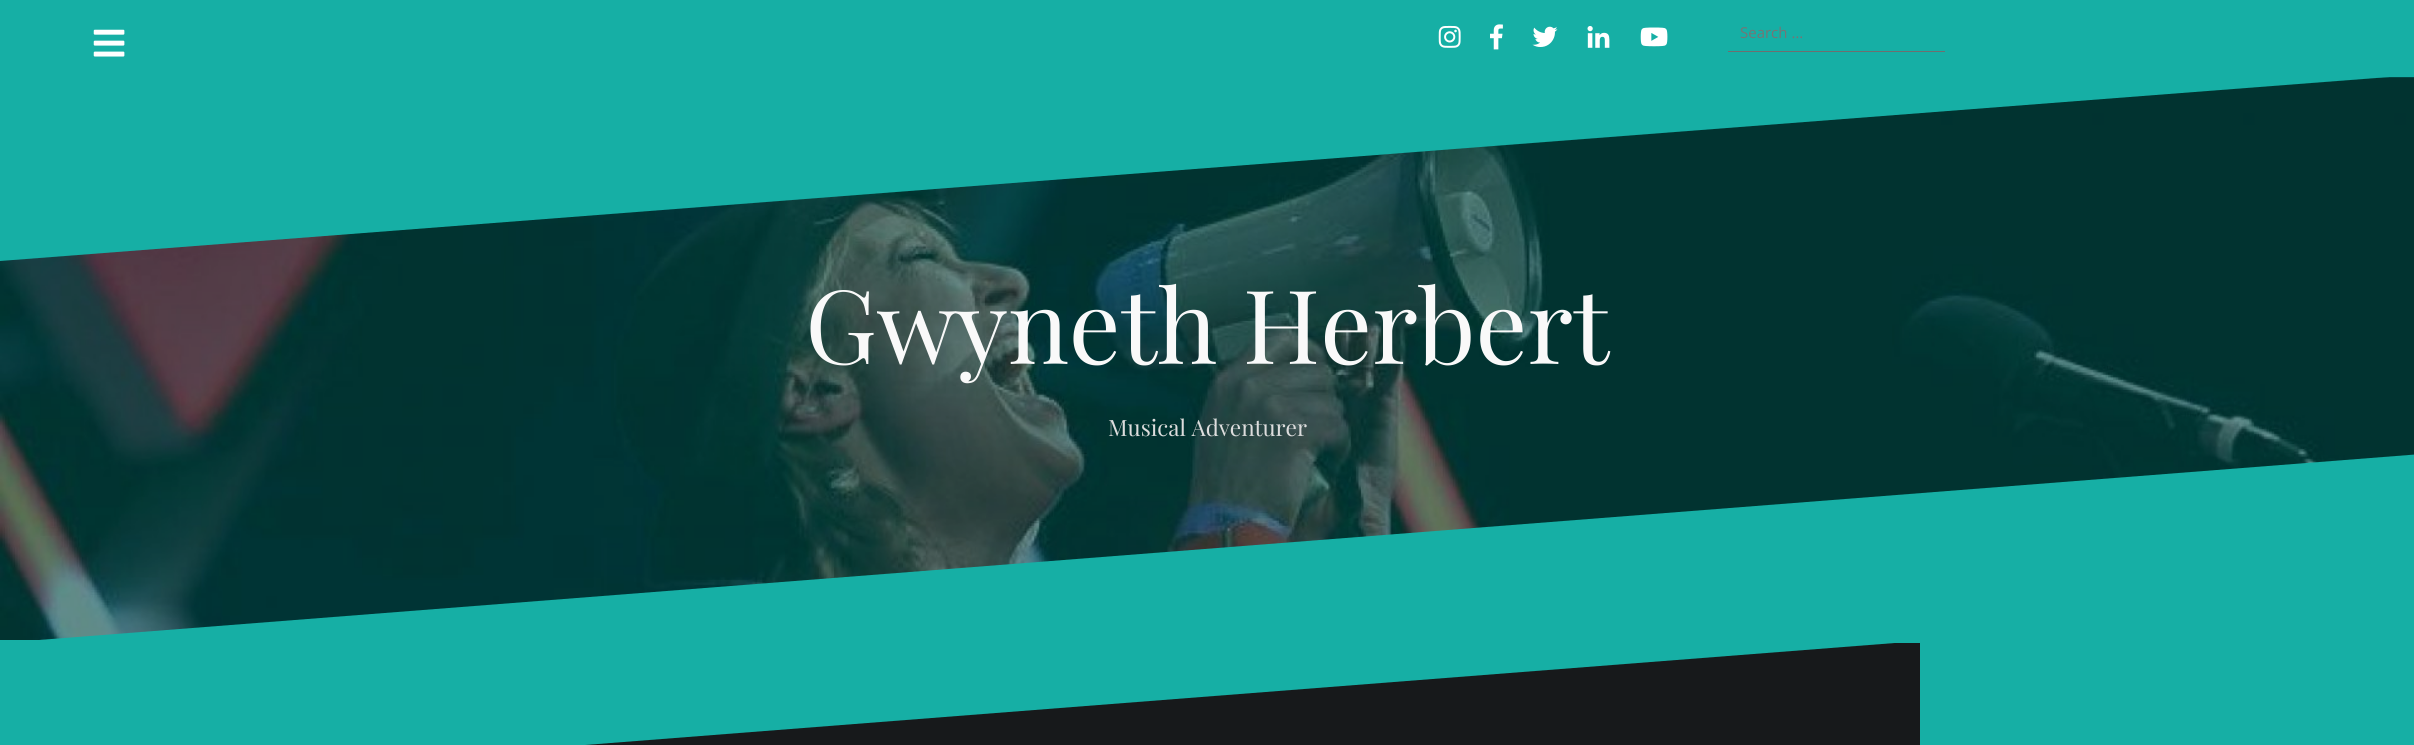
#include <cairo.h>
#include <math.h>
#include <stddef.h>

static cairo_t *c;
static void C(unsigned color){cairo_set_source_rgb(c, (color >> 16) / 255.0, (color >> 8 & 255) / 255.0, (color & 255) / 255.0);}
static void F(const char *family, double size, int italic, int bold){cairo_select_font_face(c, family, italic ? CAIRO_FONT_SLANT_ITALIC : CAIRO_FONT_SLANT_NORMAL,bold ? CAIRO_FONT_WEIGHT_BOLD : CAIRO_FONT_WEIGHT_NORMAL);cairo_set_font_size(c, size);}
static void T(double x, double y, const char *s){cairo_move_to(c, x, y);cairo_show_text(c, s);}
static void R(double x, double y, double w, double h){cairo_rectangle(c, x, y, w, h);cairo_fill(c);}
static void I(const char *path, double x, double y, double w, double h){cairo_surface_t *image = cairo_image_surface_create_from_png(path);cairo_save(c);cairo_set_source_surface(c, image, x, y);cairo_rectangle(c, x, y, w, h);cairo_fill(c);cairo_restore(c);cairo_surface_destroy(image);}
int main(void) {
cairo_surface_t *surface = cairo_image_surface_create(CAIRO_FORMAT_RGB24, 2414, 745);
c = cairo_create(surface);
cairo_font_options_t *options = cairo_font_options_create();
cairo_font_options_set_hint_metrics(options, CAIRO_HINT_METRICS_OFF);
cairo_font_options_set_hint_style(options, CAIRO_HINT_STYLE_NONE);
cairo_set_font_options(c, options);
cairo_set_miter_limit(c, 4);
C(0x16afa5);
cairo_paint(c);
I("1.png",93,29,32,28);
I("2.png",1438,25,23,23);
I("3.png",1490,24,13,26);
I("4.png",1532,26,26,21);
I("5.png",1587,26,23,22);
I("6.png",1640,27,28,20);
C(0x6f6f6f);
R(1728,51,217,1);
F("Open Sans",15,0,0);
C(0x757575);
T(1740,38,"Search …");
I("7.png",0,77,2414,563);
C(0x16afa5);
cairo_new_path(c);
cairo_move_to(c,0,261);
cairo_line_to(c,0,75);
cairo_line_to(c,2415,75);
cairo_fill(c);
F("Playfair Display",102.5,0,0);
C(0xf9f9f9);
T(805,364,"Gwyneth Herbert");
F("Playfair Display",22.5,0,0);
C(0xdddddd);
T(1108,436,"Musical Adventurer");
cairo_save(c);
cairo_rectangle(c,495,639,1425,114);
cairo_clip(c);
C(0x17191b);
cairo_new_path(c);
cairo_move_to(c,1946,639);
cairo_line_to(c,1946,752);
cairo_line_to(c,495,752);
cairo_fill(c);
cairo_restore(c);
C(0x16afa5);
cairo_new_path(c);
cairo_move_to(c,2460,451);
cairo_line_to(c,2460,643);
cairo_line_to(c,0,643);
cairo_fill(c);
cairo_surface_write_to_png(surface, "o.png");
cairo_font_options_destroy(options);
cairo_destroy(c);
cairo_surface_destroy(surface);
return 0;
}
